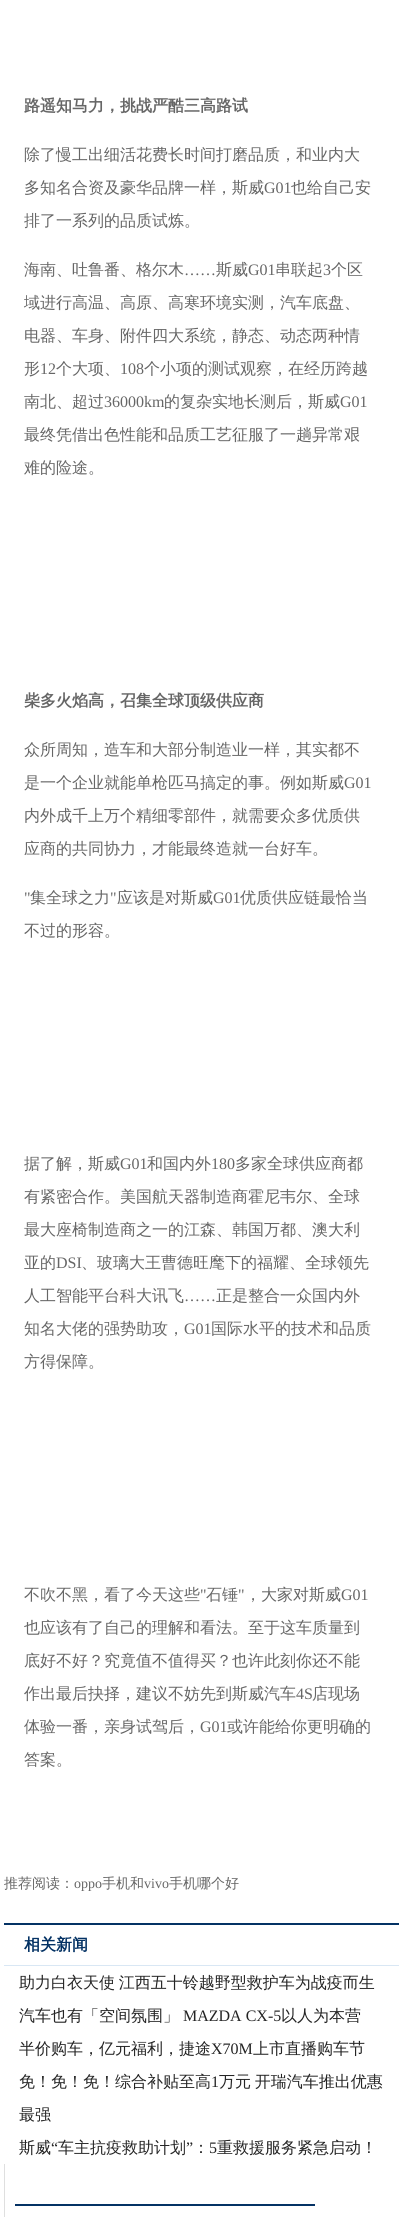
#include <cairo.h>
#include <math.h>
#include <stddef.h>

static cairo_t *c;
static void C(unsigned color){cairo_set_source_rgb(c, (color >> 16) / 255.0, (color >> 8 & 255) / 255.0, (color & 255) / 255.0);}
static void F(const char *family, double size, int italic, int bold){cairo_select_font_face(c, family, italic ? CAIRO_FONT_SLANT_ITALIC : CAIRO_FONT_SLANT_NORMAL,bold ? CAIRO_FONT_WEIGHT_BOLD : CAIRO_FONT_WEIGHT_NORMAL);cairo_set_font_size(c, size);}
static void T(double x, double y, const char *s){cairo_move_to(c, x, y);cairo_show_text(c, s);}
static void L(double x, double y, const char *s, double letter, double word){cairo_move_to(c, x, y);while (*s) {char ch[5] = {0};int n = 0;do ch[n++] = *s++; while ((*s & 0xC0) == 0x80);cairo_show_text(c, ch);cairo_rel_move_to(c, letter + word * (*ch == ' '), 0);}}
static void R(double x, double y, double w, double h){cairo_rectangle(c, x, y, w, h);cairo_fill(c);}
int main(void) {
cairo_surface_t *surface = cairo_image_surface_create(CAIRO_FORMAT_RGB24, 399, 2217);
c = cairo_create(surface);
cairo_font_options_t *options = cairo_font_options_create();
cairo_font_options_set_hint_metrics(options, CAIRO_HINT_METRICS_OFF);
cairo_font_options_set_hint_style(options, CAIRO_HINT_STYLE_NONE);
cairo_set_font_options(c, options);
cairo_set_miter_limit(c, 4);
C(0xffffff);
cairo_paint(c);
F("WenQuanYi Zen Hei",16,0,1);
C(0x666666);
T(24,111,"路遥知马力，挑战严酷三高路试");
F("WenQuanYi Zen Hei Medium",16,0,0);
T(24,160,"除了慢工出细活花费长时间打磨品质，和业内大");
T(24,193,"多知名合资及豪华品牌一样，斯威");
F("Liberation Serif",16,0,0);
T(264,193,"G01");
F("WenQuanYi Zen Hei Medium",16,0,0);
T(291,193,"也给自己安");
T(24,226,"排了一系列的品质试炼。");
T(24,275,"海南、吐鲁番、格尔木");
F("Liberation Serif",16,0,0);
T(184,275,"……");
F("WenQuanYi Zen Hei Medium",16,0,0);
T(216,275,"斯威");
F("Liberation Serif",16,0,0);
T(248,275,"G01");
F("WenQuanYi Zen Hei Medium",16,0,0);
T(275,275,"串联起");
F("Liberation Serif",16,0,0);
T(323,275,"3");
F("WenQuanYi Zen Hei Medium",16,0,0);
T(331,275,"个区");
T(24,308,"域进行高温、高原、高寒环境实测，汽车底盘、");
T(24,341,"电器、车身、附件四大系统，静态、动态两种情");
T(24,374,"形");
F("Liberation Serif",16,0,0);
T(40,374,"12");
F("WenQuanYi Zen Hei Medium",16,0,0);
T(56,374,"个大项、");
F("Liberation Serif",16,0,0);
T(120,374,"108");
F("WenQuanYi Zen Hei Medium",16,0,0);
T(144,374,"个小项的测试观察，在经历跨越");
T(24,407,"南北、超过");
F("Liberation Serif",16,0,0);
T(104,407,"36000km");
F("WenQuanYi Zen Hei Medium",16,0,0);
T(164,407,"的复杂实地长测后，斯威");
F("Liberation Serif",16,0,0);
T(340,407,"G01");
F("WenQuanYi Zen Hei Medium",16,0,0);
T(24,440,"最终凭借出色性能和品质工艺征服了一趟异常艰");
T(24,473,"难的险途。");
F("WenQuanYi Zen Hei",16,0,1);
T(24,706,"柴多火焰高，召集全球顶级供应商");
F("WenQuanYi Zen Hei Medium",16,0,0);
T(24,755,"众所周知，造车和大部分制造业一样，其实都不");
T(24,788,"是一个企业就能单枪匹马搞定的事。例如斯威");
F("Liberation Serif",16,0,0);
T(344,788,"G01");
F("WenQuanYi Zen Hei Medium",16,0,0);
T(24,821,"内外成千上万个精细零部件，就需要众多优质供");
T(24,854,"应商的共同协力，才能最终造就一台好车。");
F("Liberation Serif",16,0,0);
T(24,903,"\"");
F("WenQuanYi Zen Hei Medium",16,0,0);
T(30,903,"集全球之力");
F("Liberation Serif",16,0,0);
T(110,903,"\"");
F("WenQuanYi Zen Hei Medium",16,0,0);
T(117,903,"应该是对斯威");
F("Liberation Serif",16,0,0);
T(213,903,"G01");
F("WenQuanYi Zen Hei Medium",16,0,0);
T(240,903,"优质供应链最恰当");
T(24,936,"不过的形容。");
T(24,1169,"据了解，斯威");
F("Liberation Serif",16,0,0);
T(120,1169,"G01");
F("WenQuanYi Zen Hei Medium",16,0,0);
T(147,1169,"和国内外");
F("Liberation Serif",16,0,0);
T(211,1169,"180");
F("WenQuanYi Zen Hei Medium",16,0,0);
T(235,1169,"多家全球供应商都");
T(24,1202,"有紧密合作。美国航天器制造商霍尼韦尔、全球");
T(24,1235,"最大座椅制造商之一的江森、韩国万都、澳大利");
T(24,1268,"亚的");
F("Liberation Serif",16,0,0);
T(56,1268,"DSI");
F("WenQuanYi Zen Hei Medium",16,0,0);
T(81,1268,"、玻璃大王曹德旺麾下的福耀、全球领先");
T(24,1301,"人工智能平台科大讯飞");
F("Liberation Serif",16,0,0);
T(184,1301,"……");
F("WenQuanYi Zen Hei Medium",16,0,0);
T(216,1301,"正是整合一众国内外");
T(24,1334,"知名大佬的强势助攻，");
F("Liberation Serif",16,0,0);
T(184,1334,"G01");
F("WenQuanYi Zen Hei Medium",16,0,0);
T(211,1334,"国际水平的技术和品质");
T(24,1367,"方得保障。");
T(24,1600,"不吹不黑，看了今天这些");
F("Liberation Serif",16,0,0);
T(200,1600,"\"");
F("WenQuanYi Zen Hei Medium",16,0,0);
T(206,1600,"石锤");
F("Liberation Serif",16,0,0);
T(238,1600,"\"");
F("WenQuanYi Zen Hei Medium",16,0,0);
T(245,1600,"，大家对斯威");
F("Liberation Serif",16,0,0);
T(341,1600,"G01");
F("WenQuanYi Zen Hei Medium",16,0,0);
T(24,1633,"也应该有了自己的理解和看法。至于这车质量到");
T(24,1666,"底好不好？究竟值不值得买？也许此刻你还不能");
T(24,1699,"作出最后抉择，建议不妨先到斯威汽车");
F("Liberation Serif",16,0,0);
T(296,1699,"4S");
F("WenQuanYi Zen Hei Medium",16,0,0);
T(312,1699,"店现场");
T(24,1732,"体验一番，亲身试驾后，");
F("Liberation Serif",16,0,0);
T(200,1732,"G01");
F("WenQuanYi Zen Hei Medium",16,0,0);
T(227,1732,"或许能给你更明确的");
T(24,1765,"答案。");
F("WenQuanYi Zen Hei Medium",14,0,0);
T(4,1888,"推荐阅读：");
F("Liberation Serif",14,0,0);
T(74,1888,"oppo");
F("WenQuanYi Zen Hei Medium",14,0,0);
T(102,1888,"手机和");
F("Liberation Serif",14,0,0);
T(144,1888,"vivo");
F("WenQuanYi Zen Hei Medium",14,0,0);
T(169,1888,"手机哪个好");
C(0x043264);
R(4,1923,395,2);
C(0xd9e7f4);
R(4,1965,395,1);
F("WenQuanYi Zen Hei",16,0,1);
C(0x043264);
T(24,1950,"相关新闻");
F("WenQuanYi Zen Hei Medium",16,0,0);
C(0x242424);
L(19,1988,"助力白衣天使 江西五十铃越野型救护车为战疫而生",0,-1);
T(19,2021,"汽车也有「空间氛围」");
F("Liberation Serif",16,0,0);
T(183,2021,"MAZDA CX-5");
F("WenQuanYi Zen Hei Medium",16,0,0);
T(281,2021,"以人为本营");
T(19,2054,"半价购车，亿元福利，捷途");
F("Liberation Serif",16,0,0);
T(211,2054,"X70M");
F("WenQuanYi Zen Hei Medium",16,0,0);
T(253,2054,"上市直播购车节");
T(19,2087,"免！免！免！综合补贴至高");
F("Liberation Serif",16,0,0);
T(211,2087,"1");
F("WenQuanYi Zen Hei Medium",16,0,0);
L(219,2087,"万元 开瑞汽车推出优惠",0,-1);
T(19,2120,"最强");
T(19,2153,"斯威");
F("Liberation Serif",16,0,0);
T(51,2153,"“");
F("WenQuanYi Zen Hei Medium",16,0,0);
T(58,2153,"车主抗疫救助计划");
F("Liberation Serif",16,0,0);
T(186,2153,"”");
F("WenQuanYi Zen Hei Medium",16,0,0);
T(193,2153,"：");
F("Liberation Serif",16,0,0);
T(209,2153,"5");
F("WenQuanYi Zen Hei Medium",16,0,0);
T(217,2153,"重救援服务紧急启动！");
C(0xdfdfdf);
R(4,2164,1,53);
C(0x043264);
R(15,2204,300,2);
cairo_surface_write_to_png(surface, "o.png");
cairo_font_options_destroy(options);
cairo_destroy(c);
cairo_surface_destroy(surface);
return 0;
}
